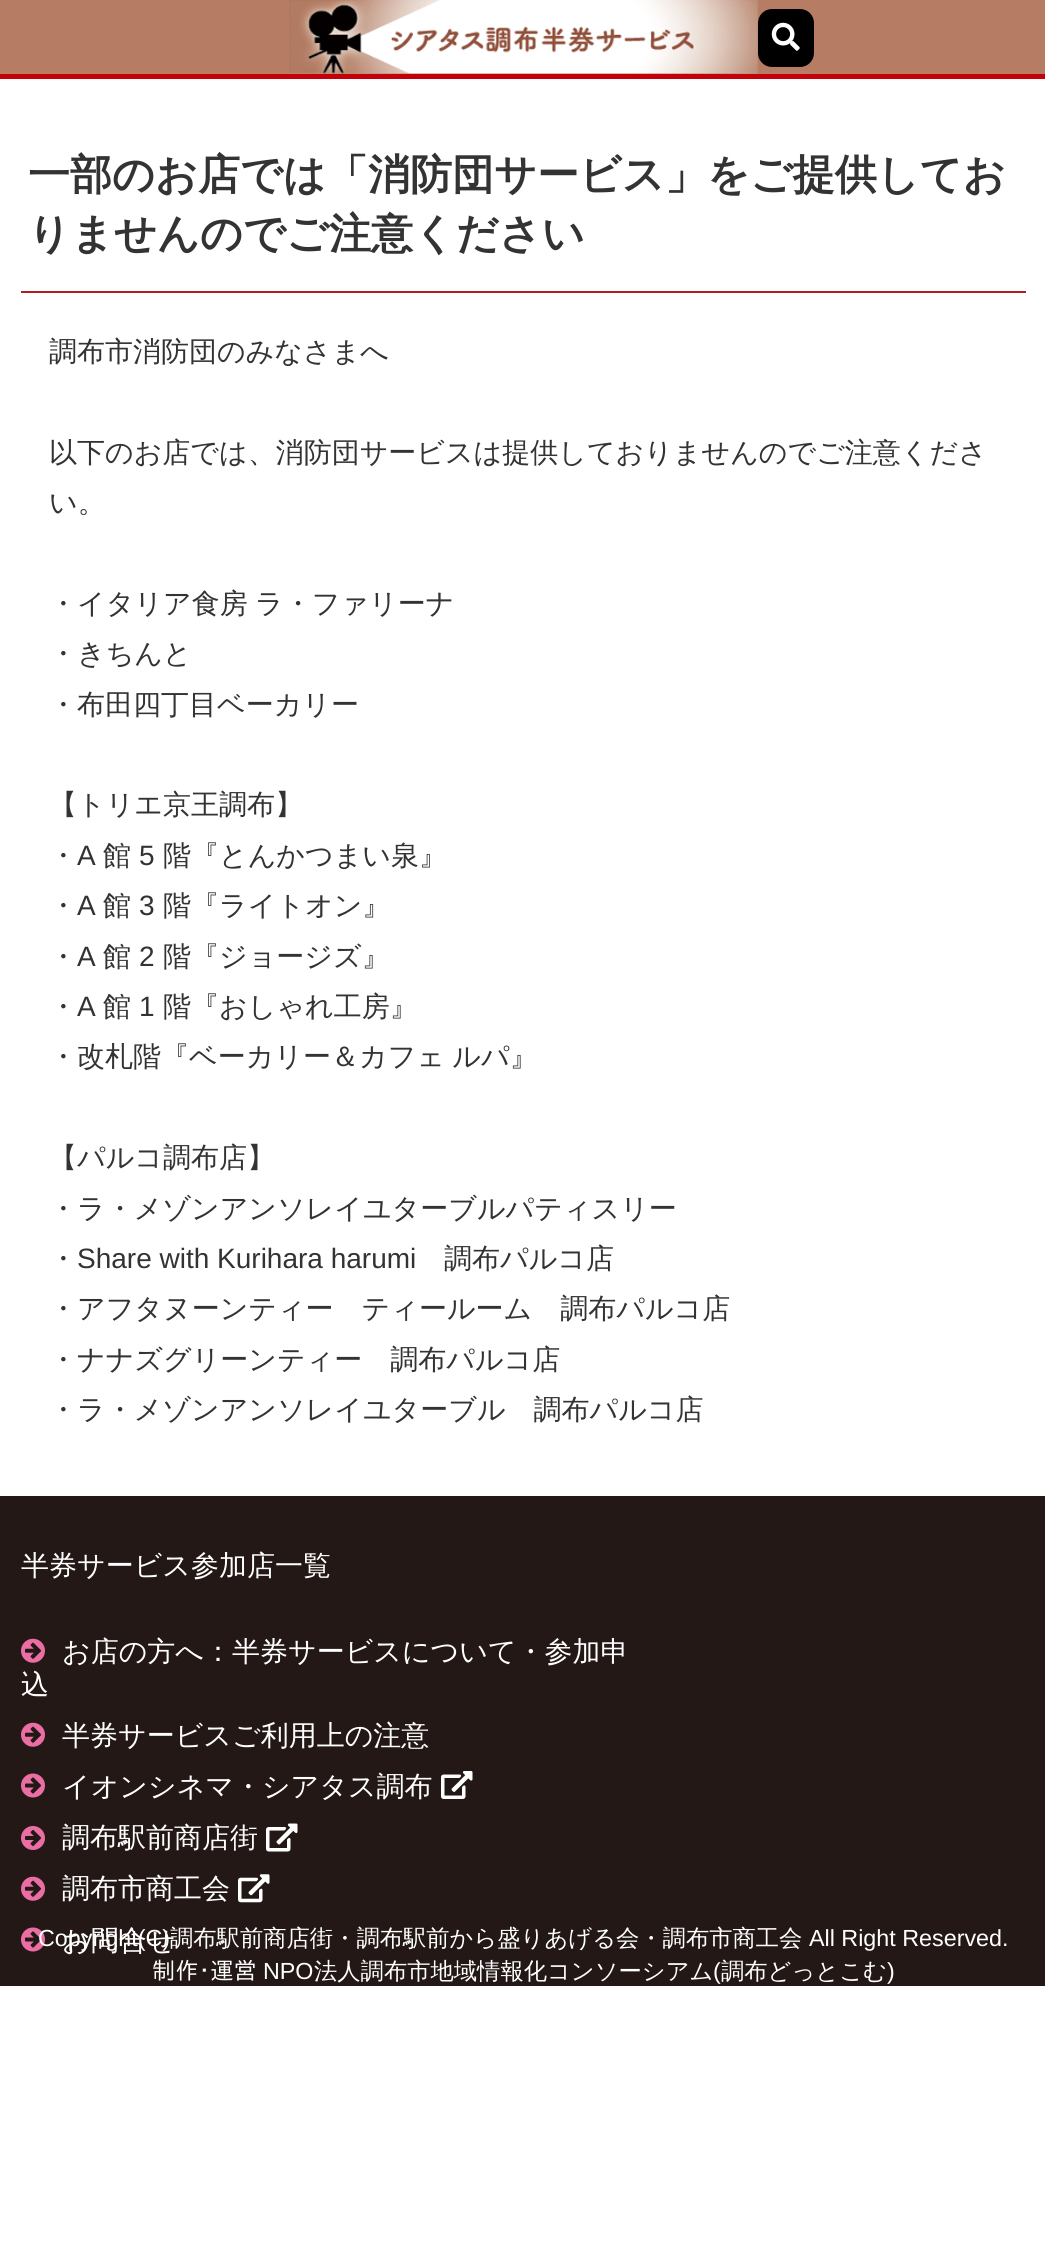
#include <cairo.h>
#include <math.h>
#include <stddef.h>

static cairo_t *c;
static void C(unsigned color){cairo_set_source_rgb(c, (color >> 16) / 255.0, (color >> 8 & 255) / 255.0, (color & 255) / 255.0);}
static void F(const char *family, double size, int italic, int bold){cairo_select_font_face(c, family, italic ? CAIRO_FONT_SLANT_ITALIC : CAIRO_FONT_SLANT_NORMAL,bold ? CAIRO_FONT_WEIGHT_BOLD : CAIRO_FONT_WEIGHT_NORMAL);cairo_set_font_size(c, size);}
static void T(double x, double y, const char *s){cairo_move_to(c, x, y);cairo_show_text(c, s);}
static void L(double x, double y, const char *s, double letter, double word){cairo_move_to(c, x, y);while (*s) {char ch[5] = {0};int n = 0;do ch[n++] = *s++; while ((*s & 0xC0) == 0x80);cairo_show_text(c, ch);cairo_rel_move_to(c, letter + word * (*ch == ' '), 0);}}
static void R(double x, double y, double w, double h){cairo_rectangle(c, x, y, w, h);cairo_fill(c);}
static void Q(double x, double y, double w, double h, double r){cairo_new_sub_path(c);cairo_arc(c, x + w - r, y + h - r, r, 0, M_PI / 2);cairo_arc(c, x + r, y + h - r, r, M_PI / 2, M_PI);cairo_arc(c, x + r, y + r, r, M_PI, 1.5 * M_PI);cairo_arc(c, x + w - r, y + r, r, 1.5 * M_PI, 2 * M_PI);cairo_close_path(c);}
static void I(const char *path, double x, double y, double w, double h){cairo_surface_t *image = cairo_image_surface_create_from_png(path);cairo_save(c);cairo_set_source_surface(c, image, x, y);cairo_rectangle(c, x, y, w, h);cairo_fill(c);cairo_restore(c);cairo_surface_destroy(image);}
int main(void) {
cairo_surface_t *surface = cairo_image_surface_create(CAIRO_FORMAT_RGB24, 1045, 2243);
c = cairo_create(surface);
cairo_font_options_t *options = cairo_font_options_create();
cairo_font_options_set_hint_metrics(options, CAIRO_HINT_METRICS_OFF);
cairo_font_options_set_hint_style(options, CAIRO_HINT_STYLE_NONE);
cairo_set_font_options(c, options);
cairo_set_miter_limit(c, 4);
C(0xffffff);
cairo_paint(c);
C(0xb67c64);
R(0,0,1045,74);
C(0xc4000a);
R(0,74,1045,5);
I("1.png",289,0,469,74);
C(0x000000);
Q(758,9,56,58,14);
cairo_fill(c);
I("2.png",771,22,29,29);
C(0xac1f24);
R(21,291,1005,2);
F("WenQuanYi Zen Hei",42,0,1);
C(0x333333);
T(28,189,"一部のお店では「消防団サービス」をご提供してお");
T(28,248,"りませんのでご注意ください");
F("WenQuanYi Zen Hei Medium",28,0,0);
T(49,361,"調布市消防団のみなさまへ");
T(49,462,"以下のお店では、消防団サービスは提供しておりませんのでご注意くださ");
T(49,512,"い。");
L(49,613,"・イタリア食房 ラ・ファリーナ",0,-1);
T(49,663,"・きちんと");
T(49,714,"・布田四丁目ベーカリー");
T(49,814,"【トリエ京王調布】");
T(49,865,"・");
F("Liberation Sans",28,0,0);
T(77,865,"A");
F("WenQuanYi Zen Hei Medium",28,0,0);
T(103,865,"館");
F("Liberation Sans",28,0,0);
T(139,865,"5");
F("WenQuanYi Zen Hei Medium",28,0,0);
T(163,865,"階『とんかつまい泉』");
T(49,915,"・");
F("Liberation Sans",28,0,0);
T(77,915,"A");
F("WenQuanYi Zen Hei Medium",28,0,0);
T(103,915,"館");
F("Liberation Sans",28,0,0);
T(139,915,"3");
F("WenQuanYi Zen Hei Medium",28,0,0);
T(163,915,"階『ライトオン』");
T(49,966,"・");
F("Liberation Sans",28,0,0);
T(77,966,"A");
F("WenQuanYi Zen Hei Medium",28,0,0);
T(103,966,"館");
F("Liberation Sans",28,0,0);
T(139,966,"2");
F("WenQuanYi Zen Hei Medium",28,0,0);
T(163,966,"階『ジョージズ』");
T(49,1016,"・");
F("Liberation Sans",28,0,0);
T(77,1016,"A");
F("WenQuanYi Zen Hei Medium",28,0,0);
T(103,1016,"館");
F("Liberation Sans",28,0,0);
T(139,1016,"1");
F("WenQuanYi Zen Hei Medium",28,0,0);
T(163,1016,"階『おしゃれ工房』");
L(49,1066,"・改札階『ベーカリー＆カフェ ルパ』",0,-1);
T(49,1167,"【パルコ調布店】");
T(49,1218,"・ラ・メゾンアンソレイユターブルパティスリー");
T(49,1268,"・");
F("Liberation Sans",28,0,0);
T(77,1268,"Share with Kurihara harumi");
F("WenQuanYi Zen Hei Medium",28,0,0);
T(444,1268,"調布パルコ店");
T(49,1318,"・アフタヌーンティー　ティールーム　調布パルコ店");
T(49,1369,"・ナナズグリーンティー　調布パルコ店");
T(49,1419,"・ラ・メゾンアンソレイユターブル　調布パルコ店");
C(0x231815);
R(0,1496,1045,490);
C(0xffffff);
T(21,1575,"半券サービス参加店一覧");
I("3.png",21,1638,24,25);
T(62,1661,"お店の方へ：半券サービスについて・参加申");
T(21,1694,"込");
I("3.png",21,1722,24,25);
T(62,1745,"半券サービスご利用上の注意");
I("4.png",21,1773,24,25);
T(62,1796,"イオンシネマ・シアタス調布");
I("5.png",441,1771,32,28);
I("6.png",21,1826,24,24);
T(62,1847,"調布駅前商店街");
I("7.png",266,1823,32,29);
I("3.png",21,1876,24,25);
T(62,1898,"調布市商工会");
I("8.png",238,1874,32,29);
I("4.png",21,1927,24,25);
T(62,1950,"お問合せ");
F("Liberation Sans",23.3,0,0);
T(38,1946,"Copyright(C)");
F("WenQuanYi Zen Hei Medium",23.3,0,0);
T(170,1946,"調布駅前商店街・調布駅前から盛りあげる会・調布市商工会");
F("Liberation Sans",23.3,0,0);
T(809,1946,"All Right Reserved.");
F("IPAPGothic",23.3,0,0);
T(152,1979,"制作･運営");
F("Liberation Sans",23.3,0,0);
T(263,1979,"NPO");
F("WenQuanYi Zen Hei Medium",23.3,0,0);
T(314,1979,"法人調布市地域情報化コンソーシアム");
F("Liberation Sans",23.3,0,0);
T(713,1979,"(");
F("WenQuanYi Zen Hei Medium",23.3,0,0);
T(721,1979,"調布どっとこむ");
F("Liberation Sans",23.3,0,0);
T(887,1979,")");
cairo_surface_write_to_png(surface, "o.png");
cairo_font_options_destroy(options);
cairo_destroy(c);
cairo_surface_destroy(surface);
return 0;
}
